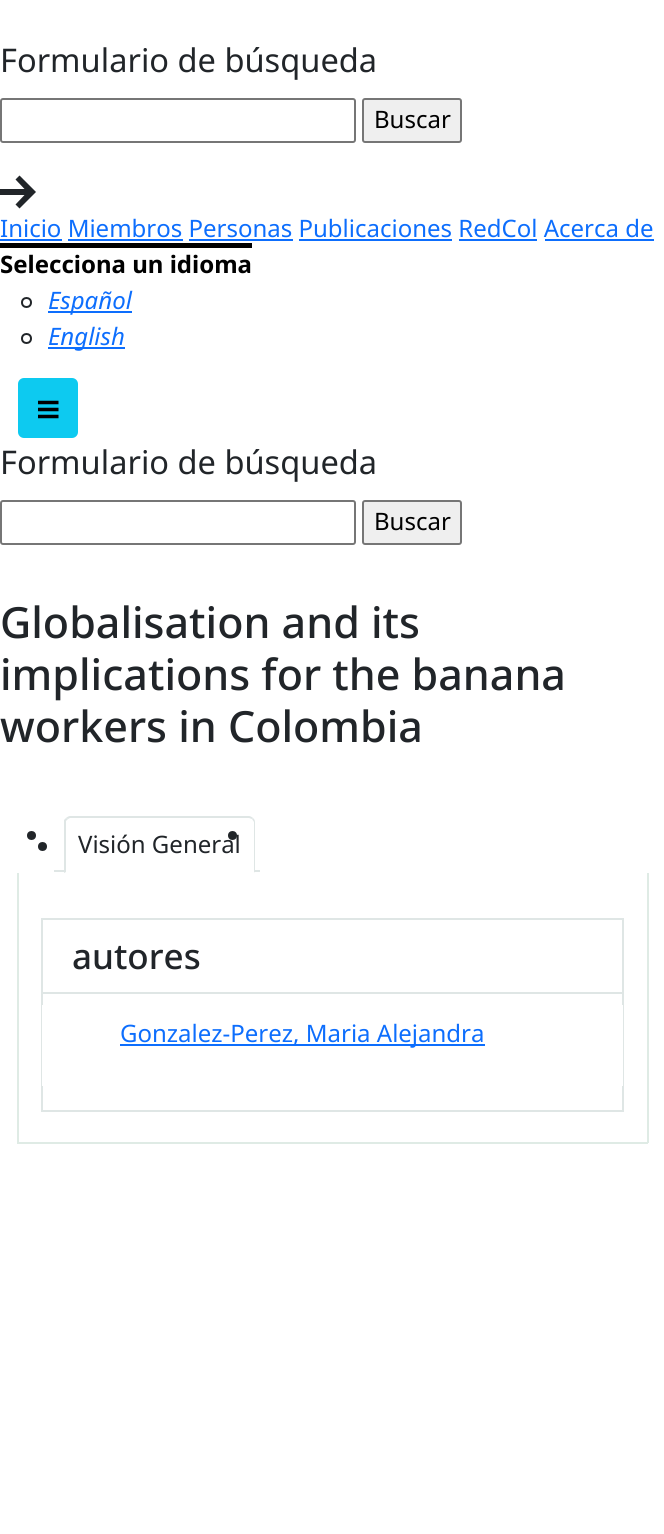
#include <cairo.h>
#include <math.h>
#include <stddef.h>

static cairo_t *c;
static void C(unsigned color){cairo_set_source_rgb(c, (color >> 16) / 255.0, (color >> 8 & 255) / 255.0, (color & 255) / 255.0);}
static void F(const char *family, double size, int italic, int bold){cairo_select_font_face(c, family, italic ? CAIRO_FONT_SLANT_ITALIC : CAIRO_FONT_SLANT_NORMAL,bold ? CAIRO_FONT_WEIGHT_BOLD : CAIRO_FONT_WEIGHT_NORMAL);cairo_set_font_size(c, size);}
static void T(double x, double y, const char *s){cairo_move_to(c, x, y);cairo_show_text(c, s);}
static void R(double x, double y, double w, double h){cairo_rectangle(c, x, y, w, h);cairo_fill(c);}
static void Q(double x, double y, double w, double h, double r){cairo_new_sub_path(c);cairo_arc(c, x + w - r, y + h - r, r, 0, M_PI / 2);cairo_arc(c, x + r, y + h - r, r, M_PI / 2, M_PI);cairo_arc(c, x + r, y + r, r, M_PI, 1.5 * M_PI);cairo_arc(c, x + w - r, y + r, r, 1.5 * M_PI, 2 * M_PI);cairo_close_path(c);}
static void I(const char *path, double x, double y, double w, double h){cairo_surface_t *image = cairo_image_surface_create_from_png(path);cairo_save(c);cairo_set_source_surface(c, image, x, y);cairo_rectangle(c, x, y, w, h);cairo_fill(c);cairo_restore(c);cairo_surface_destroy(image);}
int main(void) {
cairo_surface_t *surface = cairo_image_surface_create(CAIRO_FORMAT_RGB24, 664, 1534);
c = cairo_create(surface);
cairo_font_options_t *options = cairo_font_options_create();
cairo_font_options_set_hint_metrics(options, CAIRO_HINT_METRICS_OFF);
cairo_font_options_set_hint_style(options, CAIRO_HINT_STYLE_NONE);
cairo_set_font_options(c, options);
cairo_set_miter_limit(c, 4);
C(0xffffff);
cairo_paint(c);
F("Noto Sans",32.6,0,0);
C(0x212529);
T(0,72,"Formulario de búsqueda");
Q(1,99,354,43,2);
C(0x767676);
cairo_stroke(c);
C(0xefefef);
Q(363,99,98,43,2);
cairo_fill_preserve(c);
C(0x767676);
cairo_stroke(c);
F("Noto Sans",24,0,0);
C(0x000000);
T(374,128,"Buscar");
C(0x212529);
cairo_new_path(c);
cairo_move_to(c,19.5,175.5);
cairo_line_to(c,15.5,179.5);
cairo_line_to(c,24.5,189);
cairo_line_to(c,0,189);
cairo_line_to(c,0,195);
cairo_line_to(c,24.5,195);
cairo_line_to(c,15.5,204.5);
cairo_line_to(c,19.5,208.5);
cairo_line_to(c,36,192);
cairo_close_path(c);
cairo_fill(c);
C(0x0d6efd);
T(0,237,"Inicio Miembros Personas Publicaciones RedCol Acerca de");
R(0,239,62,2);
R(68,239,115,2);
R(189,239,104,2);
R(299,239,153,2);
R(459,239,78,2);
R(545,239,109,2);
F("Noto Sans",24,0,1);
C(0x000000);
T(0,273,"Selecciona un idioma");
R(0,243,252,5);
cairo_new_path(c);
cairo_arc(c,26.5,302.5,4.5,0,2 * M_PI);
C(0x212529);
cairo_stroke(c);
C(0x0d6efd);
R(48,311,84,2);
F("Noto Sans",24,1,0);
T(48,309,"Español");
cairo_new_path(c);
cairo_arc(c,26.5,338.5,4.5,0,2 * M_PI);
C(0x212529);
cairo_stroke(c);
C(0x0d6efd);
R(48,347,77,2);
T(48,345,"English");
C(0x0dcaf0);
Q(19,379,58,58,5);
cairo_fill_preserve(c);
cairo_stroke(c);
I("1.png",38,400,21,19);
F("Noto Sans",32.6,0,0);
C(0x212529);
T(0,474,"Formulario de búsqueda");
Q(1,501,354,43,2);
C(0x767676);
cairo_stroke(c);
C(0xefefef);
Q(363,501,98,43,2);
cairo_fill_preserve(c);
C(0x767676);
cairo_stroke(c);
F("Noto Sans",24,0,0);
C(0x000000);
T(374,530,"Buscar");
F("Noto Sans Medium",43,0,0);
C(0x212529);
T(0,638,"Globalisation and its");
T(0,690,"implications for the banana");
T(0,742,"workers in Colombia");
C(0xdfe6e5);
R(54,870,11,2);
C(0x212529);
cairo_new_path(c);
cairo_arc(c,31.5,835.5,4.5,0,2 * M_PI);
cairo_fill(c);
C(0xdfe6e5);
cairo_new_path(c);
cairo_move_to(c,70,816);
cairo_curve_to(c,69,816,67,817,66,818);
cairo_line_to(c,68,819);
cairo_line_to(c,70,818);
cairo_line_to(c,249,818);
cairo_line_to(c,252,819);
cairo_line_to(c,253,818);
cairo_curve_to(c,252,817,250,816,249,816);
cairo_close_path(c);
cairo_fill(c);
cairo_new_path(c);
cairo_move_to(c,255,873);
cairo_line_to(c,255,822);
cairo_curve_to(c,255,820,254,819,253,818);
cairo_line_to(c,252,819);
cairo_line_to(c,254,822);
cairo_line_to(c,254,872);
cairo_close_path(c);
cairo_fill(c);
C(0xffffff);
cairo_new_path(c);
cairo_move_to(c,255,873);
cairo_line_to(c,254,872);
cairo_line_to(c,66,872);
cairo_line_to(c,64,873);
cairo_close_path(c);
cairo_fill(c);
C(0xdfe6e5);
cairo_new_path(c);
cairo_move_to(c,64,873);
cairo_line_to(c,64,820);
cairo_line_to(c,66,818);
cairo_line_to(c,68,819);
cairo_line_to(c,66,821);
cairo_line_to(c,66,872);
cairo_close_path(c);
cairo_fill(c);
C(0x212529);
cairo_arc(c,42.5,846.5,4.5,0,2 * M_PI);
cairo_fill(c);
F("Noto Sans",24,0,0);
T(78,853,"Visión General");
C(0xdfe6e5);
R(255,870,5,2);
C(0x212529);
cairo_new_path(c);
cairo_arc(c,232.5,835.5,4.5,0,2 * M_PI);
cairo_fill(c);
C(0xdfebe5);
R(647,873,2,270);
R(17,1142,631,2);
R(17,873,2,270);
cairo_rectangle(c,42,919,581,192);
C(0xdfe6e5);
cairo_stroke(c);
R(42,992,581,2);
F("Noto Sans Medium",35,0,0);
C(0x212529);
T(72,969,"autores");
C(0xffffff);
R(42,1005,581,81);
C(0x0d6efd);
R(120,1044,365,2);
F("Noto Sans",24,0,0);
T(120,1042,"Gonzalez-Perez, Maria Alejandra");
cairo_surface_write_to_png(surface, "o.png");
cairo_font_options_destroy(options);
cairo_destroy(c);
cairo_surface_destroy(surface);
return 0;
}
